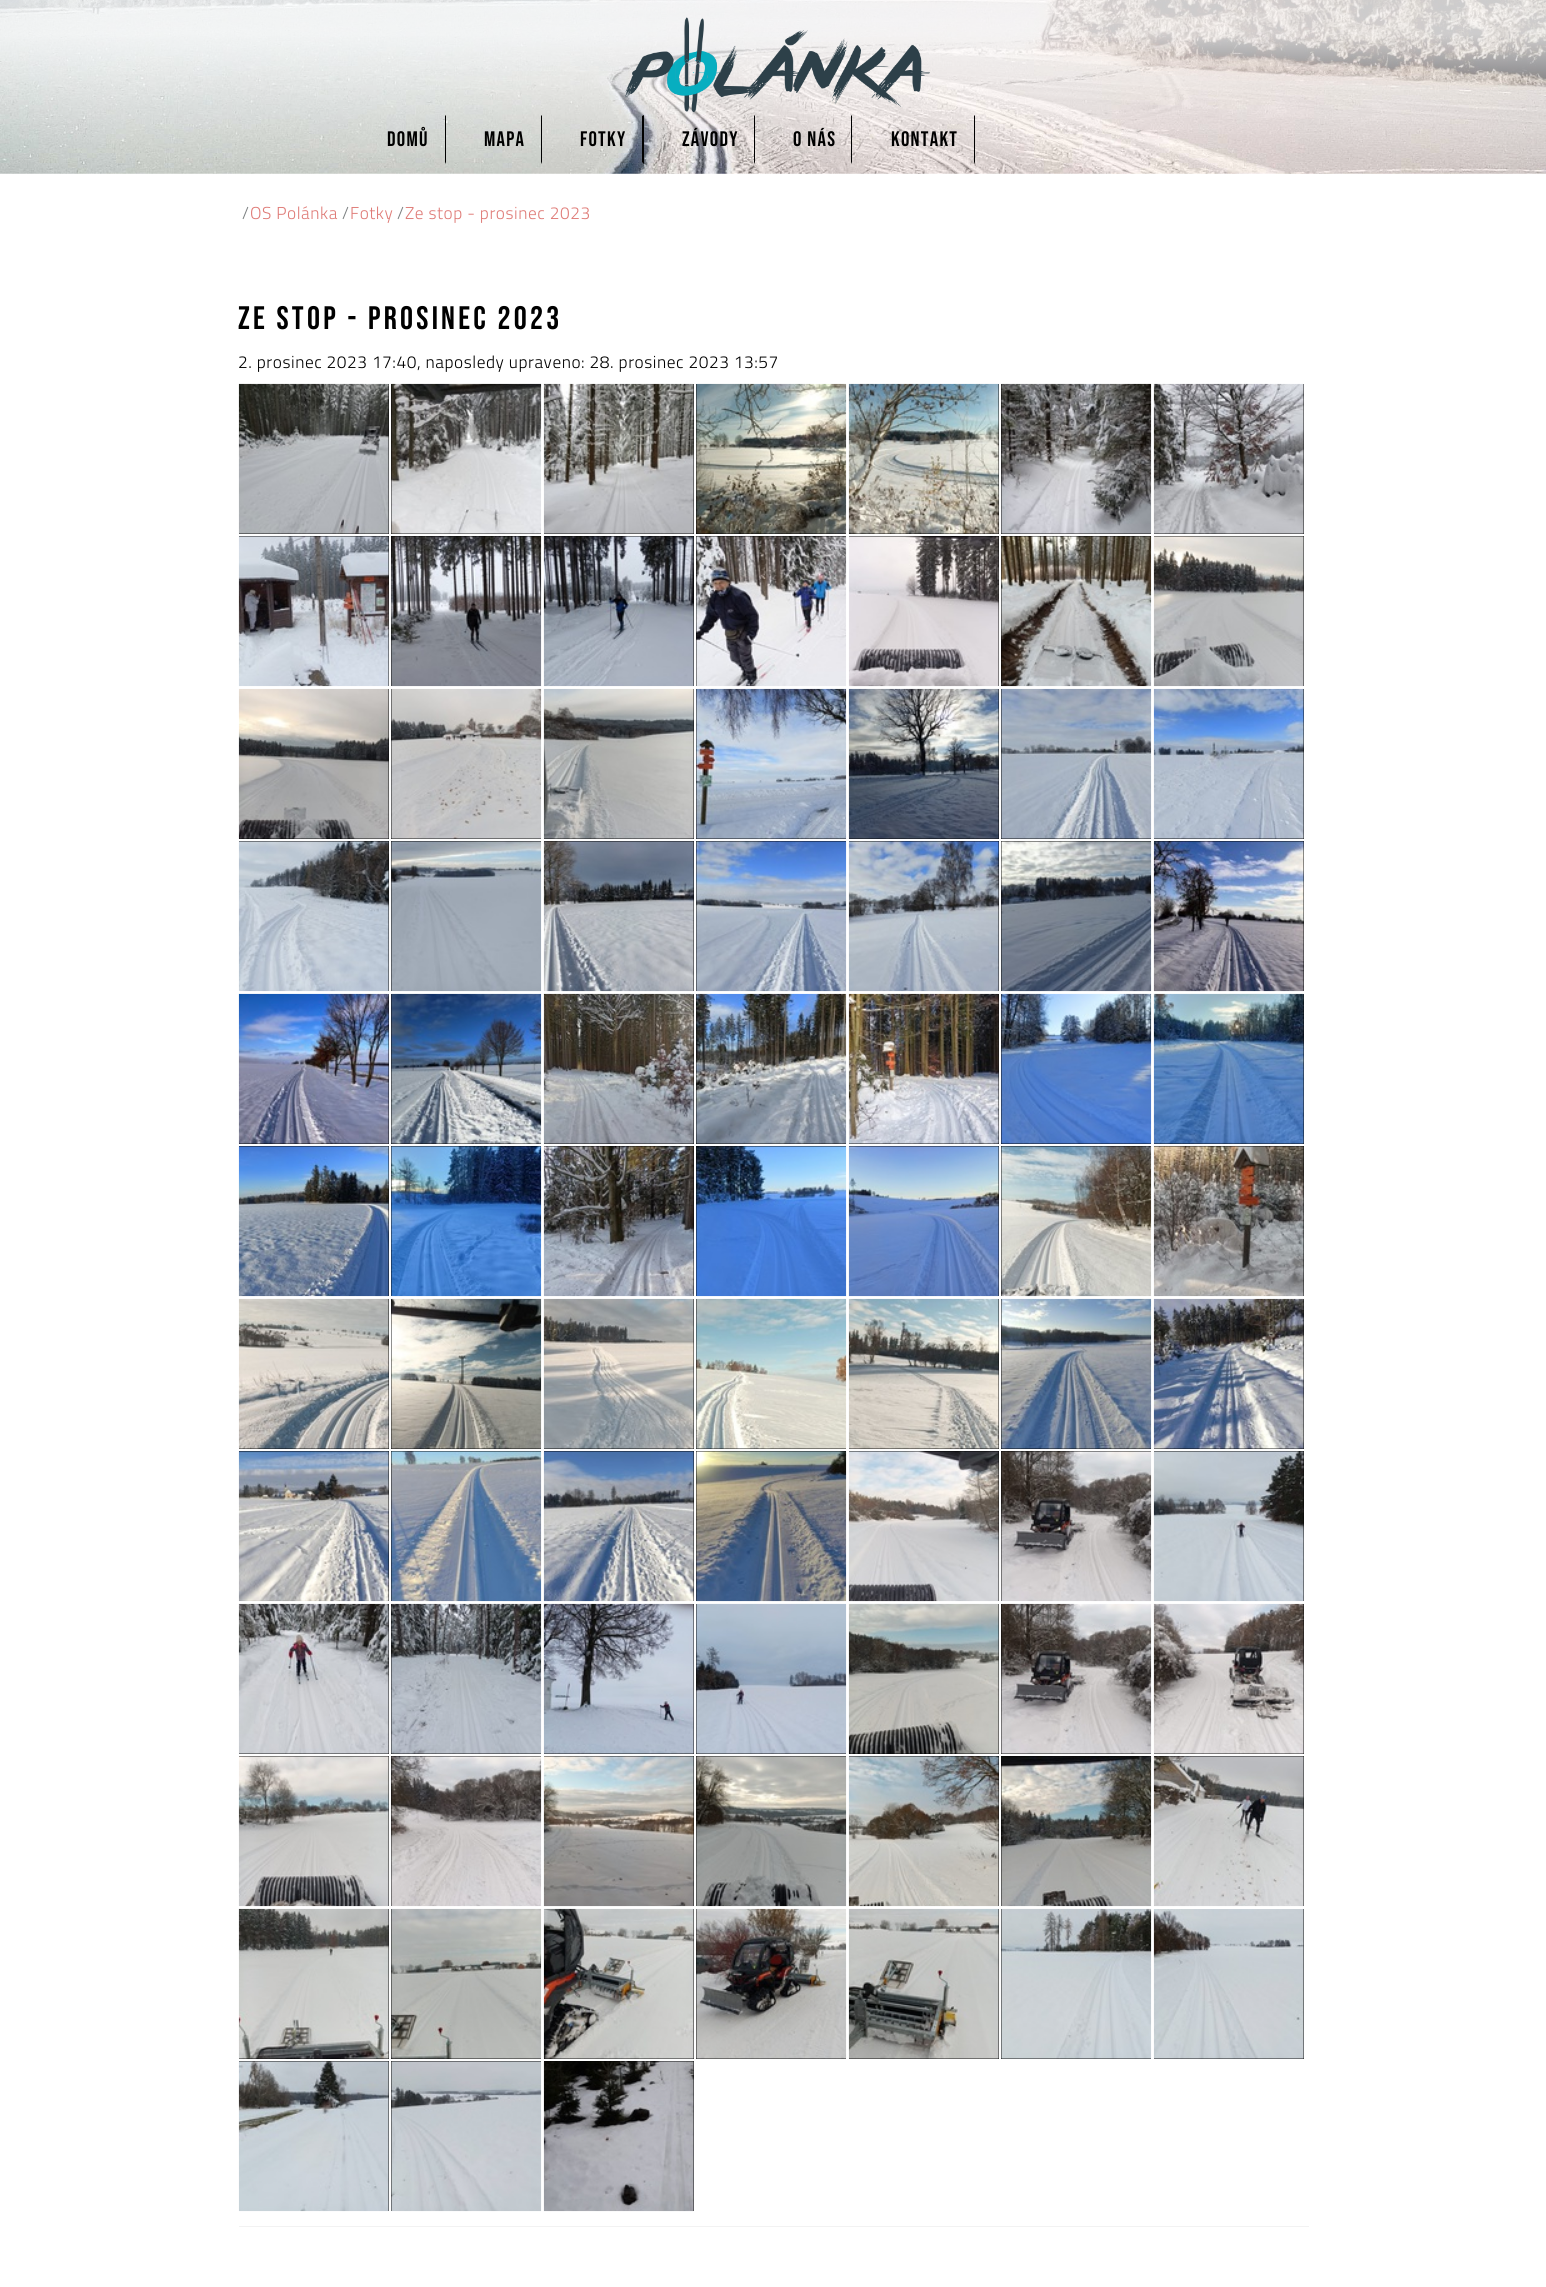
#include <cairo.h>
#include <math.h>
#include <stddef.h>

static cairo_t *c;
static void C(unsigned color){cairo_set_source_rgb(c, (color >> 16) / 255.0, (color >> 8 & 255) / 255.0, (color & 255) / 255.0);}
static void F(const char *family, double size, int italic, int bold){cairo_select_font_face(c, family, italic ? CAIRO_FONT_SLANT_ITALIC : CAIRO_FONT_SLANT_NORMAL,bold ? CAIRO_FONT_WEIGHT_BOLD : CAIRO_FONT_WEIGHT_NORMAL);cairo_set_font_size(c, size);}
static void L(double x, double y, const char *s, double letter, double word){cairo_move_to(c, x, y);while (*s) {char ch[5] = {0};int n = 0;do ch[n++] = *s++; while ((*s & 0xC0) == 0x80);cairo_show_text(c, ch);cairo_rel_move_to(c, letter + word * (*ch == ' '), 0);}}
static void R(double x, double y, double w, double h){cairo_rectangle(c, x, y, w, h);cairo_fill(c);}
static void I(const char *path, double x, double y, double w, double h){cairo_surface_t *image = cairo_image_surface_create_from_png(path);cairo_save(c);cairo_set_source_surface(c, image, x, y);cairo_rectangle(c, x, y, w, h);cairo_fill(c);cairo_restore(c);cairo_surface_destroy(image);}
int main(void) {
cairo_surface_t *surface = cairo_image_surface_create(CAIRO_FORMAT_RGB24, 1546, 2287);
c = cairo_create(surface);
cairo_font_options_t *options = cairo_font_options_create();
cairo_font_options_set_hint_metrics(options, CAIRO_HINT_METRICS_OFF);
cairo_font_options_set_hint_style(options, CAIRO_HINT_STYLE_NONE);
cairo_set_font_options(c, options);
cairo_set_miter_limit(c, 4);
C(0xffffff);
cairo_paint(c);
I("1.png",0,0,1546,174);
I("2.png",625,17,305,96);
C(0x000000);
cairo_new_path(c);
cairo_move_to(c,446,115);
cairo_line_to(c,446,164);
cairo_line_to(c,445,162);
cairo_line_to(c,445,116);
cairo_close_path(c);
cairo_fill(c);
F("Bebas Neue",21,0,0);
L(387,146,"DOMŮ",1.25,0);
cairo_new_path(c);
cairo_move_to(c,542,115);
cairo_line_to(c,542,164);
cairo_line_to(c,541,162);
cairo_line_to(c,541,116);
cairo_close_path(c);
cairo_fill(c);
L(484,146,"MAPA",1.25,0);
cairo_new_path(c);
cairo_move_to(c,644,115);
cairo_line_to(c,644,164);
cairo_line_to(c,642,162);
cairo_line_to(c,642,116);
cairo_close_path(c);
cairo_fill(c);
L(580,146,"FOTKY",1.25,0);
cairo_new_path(c);
cairo_move_to(c,755,115);
cairo_line_to(c,755,164);
cairo_line_to(c,754,162);
cairo_line_to(c,754,116);
cairo_close_path(c);
cairo_fill(c);
L(682,146,"ZÁVODY",1.25,0);
cairo_new_path(c);
cairo_move_to(c,852,115);
cairo_line_to(c,852,164);
cairo_line_to(c,851,162);
cairo_line_to(c,851,116);
cairo_close_path(c);
cairo_fill(c);
L(793,146,"O NÁS",1.25,0);
cairo_new_path(c);
cairo_move_to(c,975,115);
cairo_line_to(c,975,164);
cairo_line_to(c,974,162);
cairo_line_to(c,974,116);
cairo_close_path(c);
cairo_fill(c);
L(891,146,"KONTAKT",1.25,0);
F("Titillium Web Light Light",17.3,0,0);
C(0x7c8081);
L(242,219,"/",.55,0);
C(0xdf7b77);
L(250,219,"OS Polánka",.55,0);
C(0x7c8081);
L(342,219,"/",.55,0);
C(0xdf7b77);
L(350,219,"Fotky",.55,0);
C(0x7c8081);
L(397,219,"/",.55,0);
C(0xdf7b77);
L(405,219,"Ze stop - prosinec 2023",.55,0);
C(0xf2f2f2);
R(239,2226,1070,1);
F("Bebas Neue",32.5,0,0);
C(0x000000);
L(238,329,"ZE STOP - PROSINEC 2023",3.25,0);
F("Titillium Web Light Light",17.3,0,0);
L(238,368,"2. prosinec 2023 17:40, naposledy upraveno: 28. prosinec 2023 13:57",.55,0);
R(239,384,150,150);
I("3.png",238,383,151,151);
R(391,384,150,150);
I("4.png",391,383,151,151);
R(544,384,150,150);
I("5.png",543,383,151,151);
R(696,384,150,150);
I("6.png",696,383,151,151);
R(849,384,150,150);
I("7.png",848,383,151,151);
R(1001,384,150,150);
I("8.png",1001,383,151,151);
R(1154,384,150,150);
I("9.png",1153,383,151,151);
R(239,536,150,150);
I("10.png",238,536,151,151);
R(391,536,150,150);
I("11.png",391,536,151,151);
R(544,536,150,150);
I("12.png",543,536,151,151);
R(696,536,150,150);
I("13.png",696,536,151,151);
R(849,536,150,150);
I("14.png",848,536,151,151);
R(1001,536,150,150);
I("15.png",1001,536,151,151);
R(1154,536,150,150);
I("16.png",1153,536,151,151);
R(239,689,150,150);
I("17.png",238,688,151,151);
R(391,689,150,150);
I("18.png",391,688,151,151);
R(544,689,150,150);
I("19.png",543,688,151,151);
R(696,689,150,150);
I("20.png",696,688,151,151);
R(849,689,150,150);
I("21.png",848,688,151,151);
R(1001,689,150,150);
I("22.png",1001,688,151,151);
R(1154,689,150,150);
I("23.png",1153,688,151,151);
R(239,841,150,150);
I("24.png",238,841,151,151);
R(391,841,150,150);
I("25.png",391,841,151,151);
R(544,841,150,150);
I("26.png",543,841,151,151);
R(696,841,150,150);
I("27.png",696,841,151,151);
R(849,841,150,150);
I("28.png",848,841,151,151);
R(1001,841,150,150);
I("29.png",1001,841,151,151);
R(1154,841,150,150);
I("30.png",1153,841,151,151);
R(239,994,150,150);
I("31.png",238,993,151,151);
R(391,994,150,150);
I("32.png",391,993,151,151);
R(544,994,150,150);
I("33.png",543,993,151,151);
R(696,994,150,150);
I("34.png",696,993,151,151);
R(849,994,150,150);
I("35.png",848,993,151,151);
R(1001,994,150,150);
I("36.png",1001,993,151,151);
R(1154,994,150,150);
I("37.png",1153,993,151,151);
R(239,1146,150,150);
I("38.png",238,1146,151,151);
R(391,1146,150,150);
I("39.png",391,1146,151,151);
R(544,1146,150,150);
I("40.png",543,1146,151,151);
R(696,1146,150,150);
I("41.png",696,1146,151,151);
R(849,1146,150,150);
I("42.png",848,1146,151,151);
R(1001,1146,150,150);
I("43.png",1001,1146,151,151);
R(1154,1146,150,150);
I("44.png",1153,1146,151,151);
R(239,1299,150,150);
I("45.png",238,1298,151,151);
R(391,1299,150,150);
I("46.png",391,1298,151,151);
R(544,1299,150,150);
I("47.png",543,1298,151,151);
R(696,1299,150,150);
I("48.png",696,1298,151,151);
R(849,1299,150,150);
I("49.png",848,1298,151,151);
R(1001,1299,150,150);
I("50.png",1001,1298,151,151);
R(1154,1299,150,150);
I("51.png",1153,1298,151,151);
R(239,1451,150,150);
I("52.png",238,1451,151,151);
R(391,1451,150,150);
I("53.png",391,1451,151,151);
R(544,1451,150,150);
I("54.png",543,1451,151,151);
R(696,1451,150,150);
I("55.png",696,1451,151,151);
R(849,1451,150,150);
I("56.png",848,1451,151,151);
R(1001,1451,150,150);
I("57.png",1001,1451,151,151);
R(1154,1451,150,150);
I("58.png",1153,1451,151,151);
R(239,1604,150,150);
I("59.png",238,1603,151,151);
R(391,1604,150,150);
I("60.png",391,1603,151,151);
R(544,1604,150,150);
I("61.png",543,1603,151,151);
R(696,1604,150,150);
I("62.png",696,1603,151,151);
R(849,1604,150,150);
I("63.png",848,1603,151,151);
R(1001,1604,150,150);
I("64.png",1001,1603,151,151);
R(1154,1604,150,150);
I("65.png",1153,1603,151,151);
R(239,1756,150,150);
I("66.png",238,1756,151,151);
R(391,1756,150,150);
I("67.png",391,1756,151,151);
R(544,1756,150,150);
I("68.png",543,1756,151,151);
R(696,1756,150,150);
I("69.png",696,1756,151,151);
R(849,1756,150,150);
I("70.png",848,1756,151,151);
R(1001,1756,150,150);
I("71.png",1001,1756,151,151);
R(1154,1756,150,150);
I("72.png",1153,1756,151,151);
R(239,1909,150,150);
I("73.png",238,1908,151,151);
R(391,1909,150,150);
I("74.png",391,1908,151,151);
R(544,1909,150,150);
I("75.png",543,1908,151,151);
R(696,1909,150,150);
I("76.png",696,1908,151,151);
R(849,1909,150,150);
I("77.png",848,1908,151,151);
R(1001,1909,150,150);
I("78.png",1001,1908,151,151);
R(1154,1909,150,150);
I("79.png",1153,1909,151,150);
R(239,2061,150,150);
I("80.png",238,2061,151,151);
R(391,2061,150,150);
I("81.png",391,2061,151,151);
R(544,2061,150,150);
I("82.png",543,2061,151,151);
cairo_surface_write_to_png(surface, "o.png");
cairo_font_options_destroy(options);
cairo_destroy(c);
cairo_surface_destroy(surface);
return 0;
}
